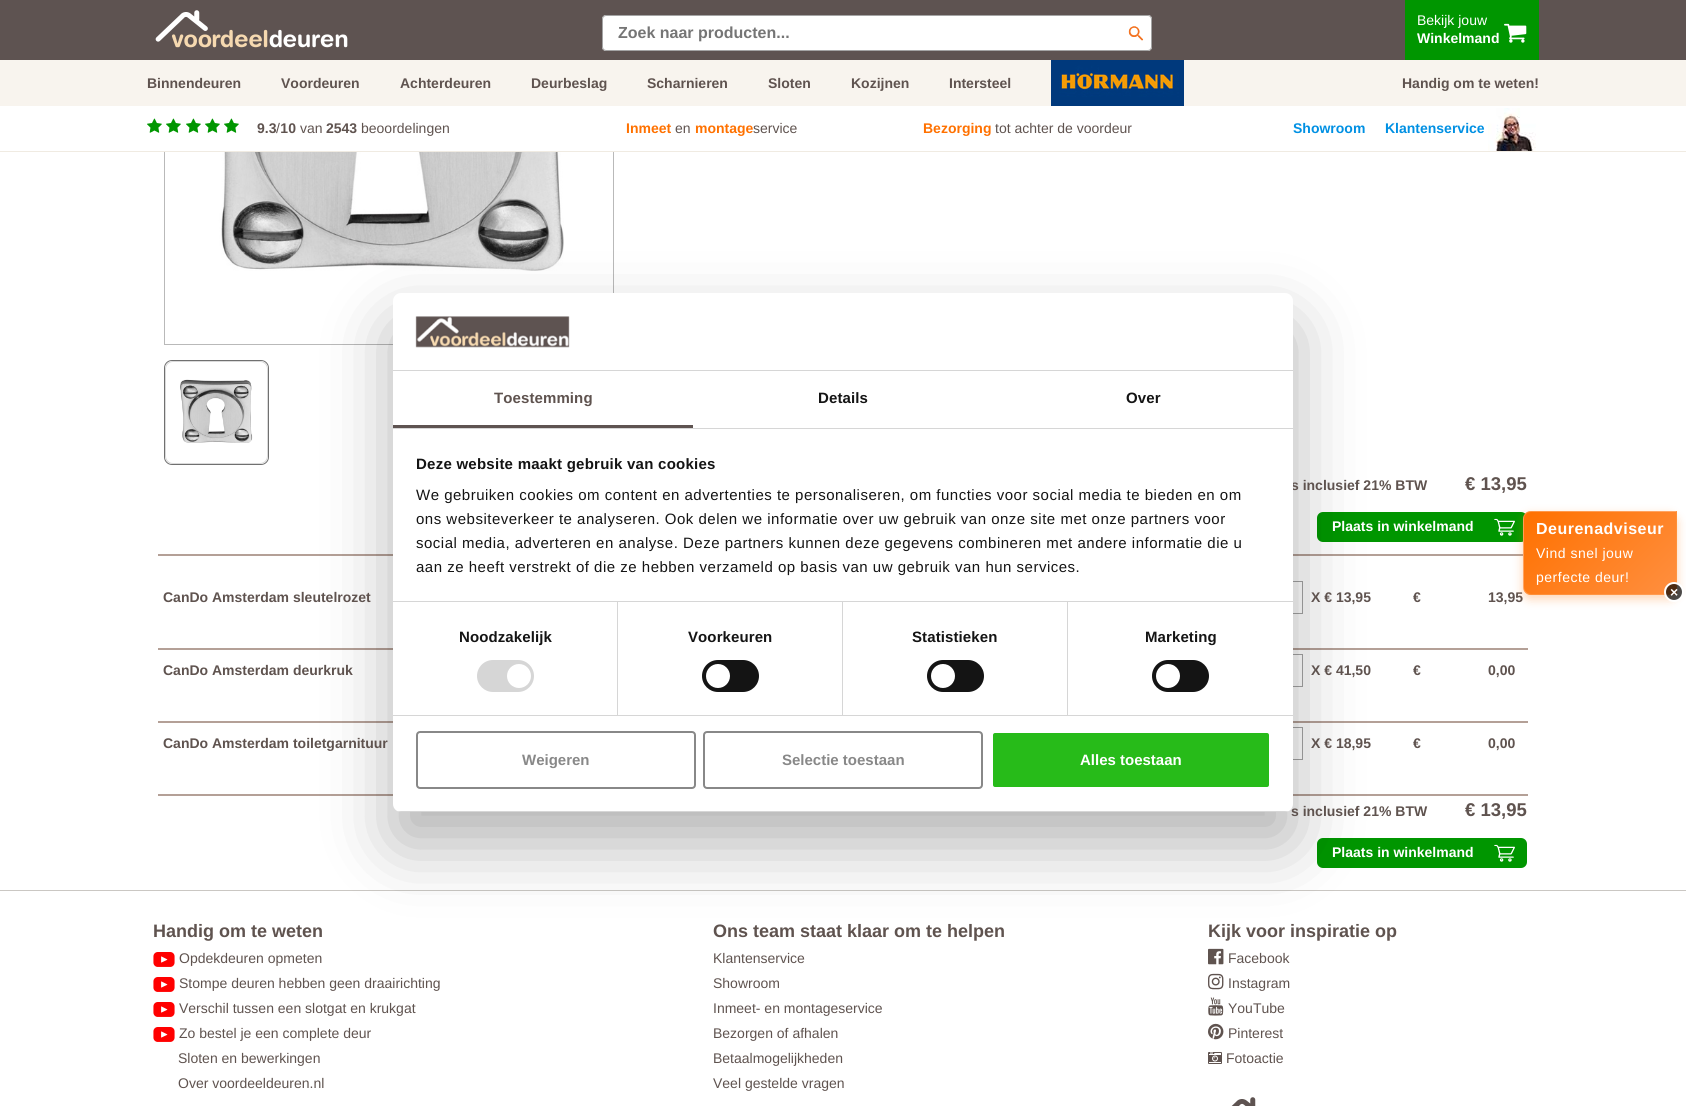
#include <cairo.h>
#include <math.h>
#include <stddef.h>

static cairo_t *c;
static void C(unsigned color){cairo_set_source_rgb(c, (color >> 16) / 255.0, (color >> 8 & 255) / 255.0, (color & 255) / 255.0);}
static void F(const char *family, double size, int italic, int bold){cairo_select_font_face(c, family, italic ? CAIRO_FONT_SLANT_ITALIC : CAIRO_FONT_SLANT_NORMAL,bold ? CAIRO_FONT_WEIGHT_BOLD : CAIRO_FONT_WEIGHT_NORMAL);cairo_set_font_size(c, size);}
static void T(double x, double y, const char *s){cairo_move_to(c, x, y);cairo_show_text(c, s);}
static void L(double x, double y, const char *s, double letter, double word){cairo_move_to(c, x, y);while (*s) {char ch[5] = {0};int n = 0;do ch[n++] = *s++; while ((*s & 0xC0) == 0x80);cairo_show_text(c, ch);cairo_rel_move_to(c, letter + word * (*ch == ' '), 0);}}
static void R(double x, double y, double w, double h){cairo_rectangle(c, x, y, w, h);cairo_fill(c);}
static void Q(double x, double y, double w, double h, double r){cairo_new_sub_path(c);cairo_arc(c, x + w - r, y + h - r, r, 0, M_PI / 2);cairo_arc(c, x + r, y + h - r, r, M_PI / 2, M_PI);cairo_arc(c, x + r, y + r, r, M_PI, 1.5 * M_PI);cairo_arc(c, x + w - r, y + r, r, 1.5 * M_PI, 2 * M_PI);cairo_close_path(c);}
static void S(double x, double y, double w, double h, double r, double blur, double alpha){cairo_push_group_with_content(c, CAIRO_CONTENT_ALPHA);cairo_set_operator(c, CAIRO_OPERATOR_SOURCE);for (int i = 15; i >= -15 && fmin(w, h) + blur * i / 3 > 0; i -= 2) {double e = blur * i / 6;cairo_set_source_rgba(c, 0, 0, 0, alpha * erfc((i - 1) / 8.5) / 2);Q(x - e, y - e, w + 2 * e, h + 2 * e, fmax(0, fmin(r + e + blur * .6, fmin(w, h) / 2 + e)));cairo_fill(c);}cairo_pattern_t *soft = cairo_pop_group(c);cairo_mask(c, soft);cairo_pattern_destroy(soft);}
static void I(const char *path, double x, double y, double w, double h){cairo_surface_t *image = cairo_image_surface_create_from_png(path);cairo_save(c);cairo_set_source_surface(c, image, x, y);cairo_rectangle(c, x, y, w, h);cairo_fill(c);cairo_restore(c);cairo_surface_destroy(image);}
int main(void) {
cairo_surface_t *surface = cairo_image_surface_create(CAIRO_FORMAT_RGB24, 1686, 1106);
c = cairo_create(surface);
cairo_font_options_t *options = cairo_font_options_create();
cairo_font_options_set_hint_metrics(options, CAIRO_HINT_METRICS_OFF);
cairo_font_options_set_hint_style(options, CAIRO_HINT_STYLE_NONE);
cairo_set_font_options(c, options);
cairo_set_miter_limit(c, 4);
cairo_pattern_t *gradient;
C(0xffffff);
cairo_paint(c);
I("8.png",210,152,354,119);
cairo_rectangle(c,164.5,-.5,449,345);
C(0xb9b9b9);
cairo_set_line_width(c,1);
cairo_stroke(c);
C(0x5e5351);
R(0,0,1686,60);
I("1.png",155,10,193,38);
C(0xffffff);
Q(602,15,550,36,4);
cairo_fill(c);
I("2.png",1128,26,16,15);
Q(602.5,15.5,549,35,3.5);
C(0xa4a4a4);
cairo_stroke(c);
F("Liberation Sans",16,0,1);
C(0x757575);
T(618,38,"Zoek naar producten...");
C(0x009600);
R(1405,0,134,60);
F("Liberation Sans",14,0,0);
C(0xffffff);
T(1417,25,"Bekijk jouw");
F("Liberation Sans",14,0,1);
T(1417,43,"Winkelmand");
I("3.png",1504,23,23,20);
C(0xf8f4ee);
R(0,60,1686,46);
C(0x5f534f);
T(147,88,"Binnendeuren");
T(281,88,"Voordeuren");
T(400,88,"Achterdeuren");
T(531,88,"Deurbeslag");
T(647,88,"Scharnieren");
T(768,88,"Sloten");
T(851,88,"Kozijnen");
T(949,88,"Intersteel");
I("4.png",1051,60,133,46);
T(1402,88,"Handig om te weten!");
C(0xffffff);
R(164,106,450,45);
C(0xf0ebe2);
R(0,151,1686,1);
I("5.png",147,118,15,15);
I("5.png",166,118,15,15);
I("5.png",186,118,15,15);
I("5.png",205,118,15,15);
I("5.png",224,118,15,15);
C(0x5f534f);
T(257,133,"9.3 10");
F("Liberation Sans",14,0,0);
T(276,133,"/");
T(361,133,"beoordelingen");
F("Liberation Sans",14,0,1);
C(0xff7100);
T(626,133,"Inmeet");
F("Liberation Sans",14,0,0);
C(0x5f534f);
T(675,133,"en");
F("Liberation Sans",14,0,1);
C(0xff7100);
T(695,133,"montage");
F("Liberation Sans",14,0,0);
C(0x5f534f);
T(753,133,"service");
F("Liberation Sans",14,0,1);
C(0xff7100);
T(923,133,"Bezorging");
F("Liberation Sans",14,0,0);
C(0x5f534f);
T(995,133,"tot achter de voordeur");
T(300,133,"van");
F("Liberation Sans",14,0,1);
T(326,133,"2543");
C(0x0090e3);
T(1293,133,"Showroom");
T(1385,133,"Klantenservice");
I("6.png",1488,108,48,43);
C(0xb4a097);
R(158,554,1370,2);
C(0x009600);
Q(1317,512,210,30,6);
cairo_fill(c);
cairo_rectangle(c,1263.5,581.5,39,32);
C(0xa4a4a4);
cairo_stroke(c);
C(0xb4a097);
R(158,648,1370,2);
cairo_rectangle(c,1263.5,654.5,39,32);
C(0xa4a4a4);
cairo_stroke(c);
C(0xb4a097);
R(158,721,1370,2);
cairo_rectangle(c,1263.5,727.5,39,32);
C(0xa4a4a4);
cairo_stroke(c);
C(0xb4a097);
R(158,794,1370,2);
C(0x009600);
Q(1317,838,210,30,6);
cairo_fill(c);
C(0xcac7c3);
R(0,890,1686,1);
C(0x000000);
S(393,325,900,519,8,34,.3);
C(0x5f534f);
T(1291,490,"s inclusief 21% BTW");
T(1291,816,"s inclusief 21% BTW");
C(0xffffff);
Q(393,293,900,519,8);
cairo_fill(c);
C(0xd6d6d6);
R(393,370,900,1);
I("7.png",415,316,155,32);
R(393,428,900,1);
C(0x5e5351);
R(393,425,300,3);
F("Liberation Sans",15,0,1);
C(0x5f534f);
L(494,403,"Toestemming",.1,0);
C(0x141414);
L(818,403,"Details",.1,0);
L(1126,403,"Over",.1,0);
C(0xd6d6d6);
R(393,601,900,1);
C(0x141414);
L(416,469,"Deze website maakt gebruik van cookies",.25,0);
F("Liberation Sans",15,0,0);
L(416,500,"We gebruiken cookies om content en advertenties te personaliseren, om functies voor social media te bieden en om",.5,0);
L(416,524,"ons websiteverkeer te analyseren. Ook delen we informatie over uw gebruik van onze site met onze partners voor",.5,0);
L(416,548,"social media, adverteren en analyse. Deze partners kunnen deze gegevens combineren met andere informatie die u",.5,0);
L(416,572,"aan ze heeft verstrekt of die ze hebben verzameld op basis van uw gebruik van hun services.",.5,0);
C(0xd6d6d6);
R(393,715,900,1);
R(617,602,1,113);
F("Liberation Sans",15,0,1);
C(0x141414);
L(459,642,"Noodzakelijk",.1,0);
C(0xd6d6d6);
Q(477,660,57,32,16);
cairo_fill(c);
C(0xffffff);
cairo_arc(c,519,676,12,0,2 * M_PI);
cairo_fill(c);
C(0xd6d6d6);
R(842,602,1,113);
C(0x141414);
L(688,642,"Voorkeuren",.1,0);
Q(702,660,57,32,16);
cairo_fill(c);
C(0xffffff);
cairo_arc(c,718,676,12,0,2 * M_PI);
cairo_fill(c);
C(0xd6d6d6);
R(1067,602,1,113);
C(0x141414);
L(912,642,"Statistieken",.1,0);
Q(927,660,57,32,16);
cairo_fill(c);
C(0xffffff);
cairo_arc(c,943,676,12,0,2 * M_PI);
cairo_fill(c);
C(0x141414);
L(1145,642,"Marketing",.1,0);
Q(1152,660,57,32,16);
cairo_fill(c);
C(0xffffff);
cairo_arc(c,1168,676,12,0,2 * M_PI);
cairo_fill(c);
cairo_save(c);
Q(393,293,900,519,8);
cairo_clip(c);
C(0xd6d6d6);
R(393,811,900,1);
cairo_restore(c);
Q(417,732,278,56,3);
C(0x888888);
cairo_set_line_width(c,2);
cairo_stroke(c);
T(522,765,"Weigeren");
Q(704,732,278,56,3);
cairo_stroke(c);
T(782,765,"Selectie toestaan");
C(0x27bb19);
Q(992,732,278,56,3);
cairo_fill_preserve(c);
C(0xffffff);
cairo_stroke(c);
T(1080,765,"Alles toestaan");
Q(164.5,360.5,104,104,7.5);
C(0x707070);
cairo_set_line_width(c,1);
cairo_stroke(c);
Q(165.5,361.5,102,102,7.5);
C(0xdadada);
cairo_stroke(c);
I("9.png",180,379,73,64);
F("Liberation Sans",18.5,0,1);
C(0x5f534f);
T(1465,490,"€ 13,95");
F("Liberation Sans",14,0,1);
C(0xffffff);
T(1332,531,"Plaats in winkelmand");
I("10.png",1494,518,21,18);
C(0x5f534f);
T(163,602,"CanDo Amsterdam sleutelrozet");
T(1311,602,"X € 13,95");
T(1413,602,"€");
T(1488,602,"13,95");
T(163,675,"CanDo Amsterdam deurkruk");
T(1311,675,"X € 41,50");
T(1413,675,"€");
T(1488,675,"0,00");
T(163,748,"CanDo Amsterdam toiletgarnituur");
T(1311,748,"X € 18,95");
T(1413,748,"€");
T(1488,748,"0,00");
F("Liberation Sans",18.5,0,1);
T(1465,816,"€ 13,95");
F("Liberation Sans",14,0,1);
C(0xffffff);
T(1332,857,"Plaats in winkelmand");
I("10.png",1494,844,21,18);
C(0xff7100);
S(1523,515,154,84,8,5,.3);
cairo_save(c);
cairo_new_path(c);
cairo_move_to(c,1531,511);
cairo_line_to(c,1677,511);
cairo_line_to(c,1677,595);
cairo_line_to(c,1531,595);
cairo_curve_to(c,1526.5,595,1523,591.5,1523,587);
cairo_line_to(c,1523,519);
cairo_curve_to(c,1523,514.5,1526.5,511,1531,511);
cairo_close_path(c);
cairo_clip(c);
gradient = cairo_pattern_create_linear(1542,413,1659,530);
cairo_pattern_add_color_stop_rgba(gradient,0,1,0.443,0,1);
cairo_pattern_add_color_stop_rgba(gradient,1,1,0.561,0.251,1);
cairo_set_source(c,gradient);
cairo_pattern_destroy(gradient);
R(1524,511,152,1);
cairo_restore(c);
gradient = cairo_pattern_create_linear(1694,413,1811,530);
cairo_pattern_add_color_stop_rgba(gradient,0,1,0.443,0,1);
cairo_pattern_add_color_stop_rgba(gradient,1,1,0.561,0.251,1);
cairo_set_source(c,gradient);
cairo_pattern_destroy(gradient);
R(1676,511,1,1);
cairo_save(c);
cairo_new_path(c);
cairo_move_to(c,1531,511);
cairo_line_to(c,1677,511);
cairo_line_to(c,1677,595);
cairo_line_to(c,1531,595);
cairo_curve_to(c,1526.5,595,1523,591.5,1523,587);
cairo_line_to(c,1523,519);
cairo_curve_to(c,1523,514.5,1526.5,511,1531,511);
cairo_close_path(c);
cairo_clip(c);
gradient = cairo_pattern_create_linear(1390,495,1507,612);
cairo_pattern_add_color_stop_rgba(gradient,0,1,0.443,0,1);
cairo_pattern_add_color_stop_rgba(gradient,1,1,0.561,0.251,1);
cairo_set_source(c,gradient);
cairo_pattern_destroy(gradient);
R(1523,512,1,82);
gradient = cairo_pattern_create_linear(1542,495,1659,612);
cairo_pattern_add_color_stop_rgba(gradient,0,1,0.443,0,1);
cairo_pattern_add_color_stop_rgba(gradient,1,1,0.561,0.251,1);
cairo_set_source(c,gradient);
cairo_pattern_destroy(gradient);
R(1524,512,152,82);
cairo_restore(c);
gradient = cairo_pattern_create_linear(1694,495,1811,612);
cairo_pattern_add_color_stop_rgba(gradient,0,1,0.443,0,1);
cairo_pattern_add_color_stop_rgba(gradient,1,1,0.561,0.251,1);
cairo_set_source(c,gradient);
cairo_pattern_destroy(gradient);
R(1676,512,1,82);
cairo_save(c);
cairo_new_path(c);
cairo_move_to(c,1531,511);
cairo_line_to(c,1677,511);
cairo_line_to(c,1677,595);
cairo_line_to(c,1531,595);
cairo_curve_to(c,1526.5,595,1523,591.5,1523,587);
cairo_line_to(c,1523,519);
cairo_curve_to(c,1523,514.5,1526.5,511,1531,511);
cairo_close_path(c);
cairo_clip(c);
gradient = cairo_pattern_create_linear(1542,577,1659,694);
cairo_pattern_add_color_stop_rgba(gradient,0,1,0.443,0,1);
cairo_pattern_add_color_stop_rgba(gradient,1,1,0.561,0.251,1);
cairo_set_source(c,gradient);
cairo_pattern_destroy(gradient);
R(1524,594,152,1);
cairo_restore(c);
gradient = cairo_pattern_create_linear(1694,577,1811,694);
cairo_pattern_add_color_stop_rgba(gradient,0,1,0.443,0,1);
cairo_pattern_add_color_stop_rgba(gradient,1,1,0.561,0.251,1);
cairo_set_source(c,gradient);
cairo_pattern_destroy(gradient);
R(1676,594,1,1);
cairo_new_path(c);
cairo_move_to(c,1531,511.5);
cairo_line_to(c,1676.5,511.5);
cairo_line_to(c,1676.5,594.5);
cairo_line_to(c,1531,594.5);
cairo_curve_to(c,1527,594.5,1523.5,591,1523.5,587);
cairo_line_to(c,1523.5,519);
cairo_curve_to(c,1523.5,515,1527,511.5,1531,511.5);
cairo_close_path(c);
cairo_set_source_rgba(c,1,1,1,0.2);
cairo_stroke(c);
F("Liberation Sans",16,0,1);
C(0xffffff);
L(1536,534,"Deurenadviseur",.5,0);
F("Liberation Sans",14,0,0);
L(1536,558,"Vind snel jouw",.5,0);
L(1536,582,"perfecte deur!",.5,0);
cairo_set_source_rgba(c,0,0,0,0.7);
cairo_new_path(c);
cairo_arc(c,1674,592,9,0,2 * M_PI);
cairo_fill_preserve(c);
C(0xffffff);
cairo_set_line_width(c,2);
cairo_stroke(c);
F("Liberation Sans",14,0,1);
L(1670,597,"×",.5,0);
F("Liberation Sans",18,0,1);
C(0x5f534f);
T(153,937,"Handig om te weten");
I("11.png",153,952,22,15);
F("Liberation Sans",14,0,0);
T(179,963,"Opdekdeuren opmeten");
I("11.png",153,977,22,15);
T(179,988,"Stompe deuren hebben geen draairichting");
I("11.png",153,1002,22,15);
T(179,1013,"Verschil tussen een slotgat en krukgat");
I("11.png",153,1027,22,15);
T(179,1038,"Zo bestel je een complete deur");
T(178,1063,"Sloten en bewerkingen");
T(178,1088,"Over voordeeldeuren.nl");
F("Liberation Sans",18,0,1);
T(713,937,"Ons team staat klaar om te helpen");
F("Liberation Sans",14,0,0);
T(713,963,"Klantenservice");
T(713,988,"Showroom");
T(713,1013,"Inmeet- en montageservice");
T(713,1038,"Bezorgen of afhalen");
T(713,1063,"Betaalmogelijkheden");
T(713,1088,"Veel gestelde vragen");
F("Liberation Sans",18,0,1);
T(1208,937,"Kijk voor inspiratie op");
I("12.png",1208,948,16,17);
F("Liberation Sans",14,0,0);
T(1228,963,"Facebook");
I("13.png",1208,973,16,17);
T(1228,988,"Instagram");
I("14.png",1208,997,16,19);
T(1228,1013,"YouTube");
I("15.png",1208,1023,16,17);
T(1228,1038,"Pinterest");
I("16.png",1208,1052,14,12);
T(1226,1063,"Fotoactie");
I("17.png",1231,1097,25,9);
cairo_surface_write_to_png(surface, "o.png");
cairo_font_options_destroy(options);
cairo_destroy(c);
cairo_surface_destroy(surface);
return 0;
}
